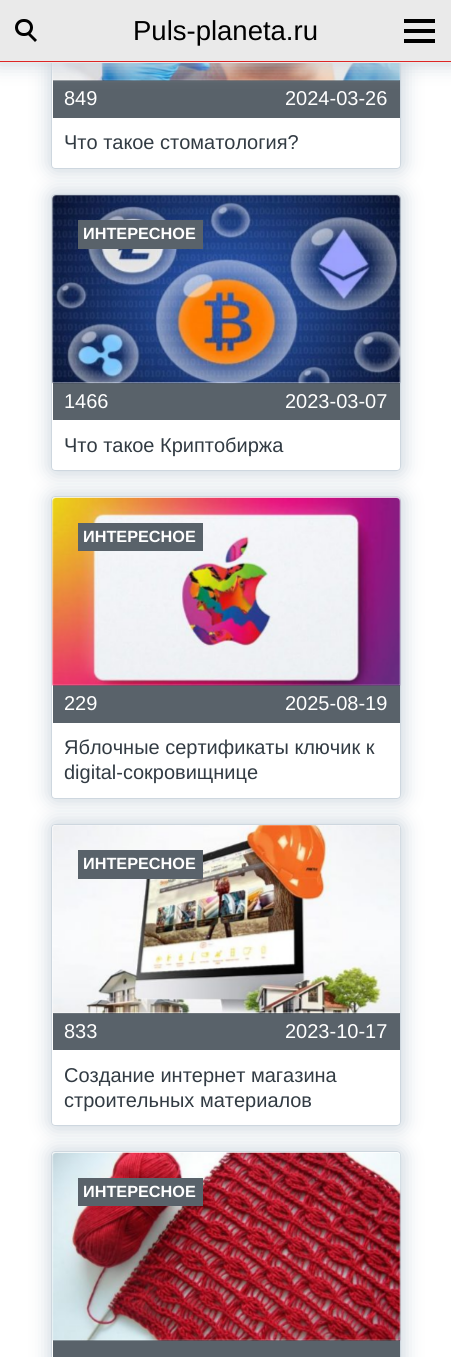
#include <cairo.h>
#include <math.h>
#include <stddef.h>

static cairo_t *c;
static void C(unsigned color){cairo_set_source_rgb(c, (color >> 16) / 255.0, (color >> 8 & 255) / 255.0, (color & 255) / 255.0);}
static void F(const char *family, double size, int italic, int bold){cairo_select_font_face(c, family, italic ? CAIRO_FONT_SLANT_ITALIC : CAIRO_FONT_SLANT_NORMAL,bold ? CAIRO_FONT_WEIGHT_BOLD : CAIRO_FONT_WEIGHT_NORMAL);cairo_set_font_size(c, size);}
static void T(double x, double y, const char *s){cairo_move_to(c, x, y);cairo_show_text(c, s);}
static void R(double x, double y, double w, double h){cairo_rectangle(c, x, y, w, h);cairo_fill(c);}
static void Q(double x, double y, double w, double h, double r){cairo_new_sub_path(c);cairo_arc(c, x + w - r, y + h - r, r, 0, M_PI / 2);cairo_arc(c, x + r, y + h - r, r, M_PI / 2, M_PI);cairo_arc(c, x + r, y + r, r, M_PI, 1.5 * M_PI);cairo_arc(c, x + w - r, y + r, r, 1.5 * M_PI, 2 * M_PI);cairo_close_path(c);}
static void S(double x, double y, double w, double h, double r, double blur, double alpha){cairo_push_group_with_content(c, CAIRO_CONTENT_ALPHA);cairo_set_operator(c, CAIRO_OPERATOR_SOURCE);for (int i = 15; i >= -15 && fmin(w, h) + blur * i / 3 > 0; i -= 2) {double e = blur * i / 6;cairo_set_source_rgba(c, 0, 0, 0, alpha * erfc((i - 1) / 8.5) / 2);Q(x - e, y - e, w + 2 * e, h + 2 * e, fmax(0, fmin(r + e + blur * .6, fmin(w, h) / 2 + e)));cairo_fill(c);}cairo_pattern_t *soft = cairo_pop_group(c);cairo_mask(c, soft);cairo_pattern_destroy(soft);}
static void I(const char *path, double x, double y, double w, double h){cairo_surface_t *image = cairo_image_surface_create_from_png(path);cairo_save(c);cairo_set_source_surface(c, image, x, y);cairo_rectangle(c, x, y, w, h);cairo_fill(c);cairo_restore(c);cairo_surface_destroy(image);}
int main(void) {
cairo_surface_t *surface = cairo_image_surface_create(CAIRO_FORMAT_RGB24, 451, 1357);
c = cairo_create(surface);
cairo_font_options_t *options = cairo_font_options_create();
cairo_font_options_set_hint_metrics(options, CAIRO_HINT_METRICS_OFF);
cairo_font_options_set_hint_style(options, CAIRO_HINT_STYLE_NONE);
cairo_set_font_options(c, options);
cairo_set_miter_limit(c, 4);
C(0xffffff);
cairo_paint(c);
cairo_save(c);
cairo_set_fill_rule(c,CAIRO_FILL_RULE_EVEN_ODD);
cairo_new_path(c);
cairo_move_to(c,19,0);
cairo_line_to(c,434,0);
cairo_line_to(c,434,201);
cairo_line_to(c,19,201);
cairo_close_path(c);
cairo_move_to(c,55,-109);
cairo_line_to(c,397,-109);
cairo_curve_to(c,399,-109,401,-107,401,-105);
cairo_line_to(c,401,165);
cairo_curve_to(c,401,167,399,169,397,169);
cairo_line_to(c,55,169);
cairo_curve_to(c,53,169,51,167,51,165);
cairo_line_to(c,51,-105);
cairo_curve_to(c,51,-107,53,-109,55,-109);
cairo_close_path(c);
cairo_clip(c);
C(0xced7df);
S(49,-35,355,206,6,9.5,1);
cairo_restore(c);
Q(51.5,-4.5,349,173,3.5);
C(0xced7df);
cairo_set_line_width(c,1);
cairo_stroke(c);
C(0x59626a);
R(53,80,347,38);
I("1.png",52,63,348,18);
C(0xced7df);
S(-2,-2,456,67,0,9.5,1);
C(0xeaeaea);
R(0,0,451,63);
C(0xdd2525);
R(0,61,451,1);
Q(16.5,20.5,15,14,7);
C(0x000000);
cairo_set_line_width(c,3);
cairo_stroke(c);
cairo_new_path(c);
cairo_move_to(c,30,33);
cairo_line_to(c,37,40);
cairo_line_to(c,35,42);
cairo_line_to(c,28,35);
cairo_close_path(c);
cairo_fill(c);
F("Liberation Sans",27.5,0,0);
T(133,40,"Puls-planeta.ru");
R(404,19,31,4);
R(404,29,31,4);
R(404,39,31,4);
F("Liberation Sans",20,0,0);
C(0xffffff);
T(64,105,"849");
T(285,105,"2024-03-26");
C(0x323b43);
T(64,149,"Что такое стоматология?");
cairo_save(c);
cairo_set_fill_rule(c,CAIRO_FILL_RULE_EVEN_ODD);
cairo_new_path(c);
cairo_move_to(c,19,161);
cairo_line_to(c,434,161);
cairo_line_to(c,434,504);
cairo_line_to(c,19,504);
cairo_close_path(c);
cairo_move_to(c,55,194);
cairo_line_to(c,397,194);
cairo_curve_to(c,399,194,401,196,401,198);
cairo_line_to(c,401,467);
cairo_curve_to(c,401,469,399,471,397,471);
cairo_line_to(c,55,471);
cairo_curve_to(c,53,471,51,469,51,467);
cairo_line_to(c,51,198);
cairo_curve_to(c,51,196,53,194,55,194);
cairo_close_path(c);
cairo_clip(c);
C(0xced7df);
S(49,191,355,283,6,9.5,1);
cairo_restore(c);
Q(51.5,194.5,349,276,3.5);
C(0xced7df);
cairo_set_line_width(c,1);
cairo_stroke(c);
C(0x59626a);
R(53,383,347,37);
I("2.png",52,195,349,189);
R(78,220,125,29);
F("Liberation Sans",16.25,0,1);
C(0xffffff);
T(83,239,"ИНТЕРЕСНОЕ");
F("Liberation Sans",20,0,0);
T(64,408,"1466");
T(285,408,"2023-03-07");
C(0x323b43);
T(64,452,"Что такое Криптобиржа");
cairo_save(c);
cairo_set_fill_rule(c,CAIRO_FILL_RULE_EVEN_ODD);
cairo_new_path(c);
cairo_move_to(c,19,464);
cairo_line_to(c,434,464);
cairo_line_to(c,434,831);
cairo_line_to(c,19,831);
cairo_close_path(c);
cairo_move_to(c,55,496);
cairo_line_to(c,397,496);
cairo_curve_to(c,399,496,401,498,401,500);
cairo_line_to(c,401,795);
cairo_curve_to(c,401,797,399,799,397,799);
cairo_line_to(c,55,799);
cairo_curve_to(c,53,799,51,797,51,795);
cairo_line_to(c,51,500);
cairo_curve_to(c,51,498,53,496,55,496);
cairo_close_path(c);
cairo_clip(c);
C(0xced7df);
S(49,494,355,307,6,9.5,1);
cairo_restore(c);
Q(51.5,496.5,349,302,3.5);
C(0xced7df);
cairo_stroke(c);
C(0x59626a);
R(53,685,347,38);
I("3.png",52,497,349,189);
R(78,523,125,28);
F("Liberation Sans",16.25,0,1);
C(0xffffff);
T(83,542,"ИНТЕРЕСНОЕ");
F("Liberation Sans",20,0,0);
T(64,710,"229");
T(285,710,"2025-08-19");
C(0x323b43);
T(64,754,"Яблочные сертификаты ключик к");
T(64,779,"digital-сокровищнице");
cairo_save(c);
cairo_set_fill_rule(c,CAIRO_FILL_RULE_EVEN_ODD);
cairo_new_path(c);
cairo_move_to(c,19,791);
cairo_line_to(c,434,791);
cairo_line_to(c,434,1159);
cairo_line_to(c,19,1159);
cairo_close_path(c);
cairo_move_to(c,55,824);
cairo_line_to(c,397,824);
cairo_curve_to(c,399,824,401,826,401,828);
cairo_line_to(c,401,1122);
cairo_curve_to(c,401,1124,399,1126,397,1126);
cairo_line_to(c,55,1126);
cairo_curve_to(c,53,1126,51,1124,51,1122);
cairo_line_to(c,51,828);
cairo_curve_to(c,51,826,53,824,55,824);
cairo_close_path(c);
cairo_clip(c);
C(0xced7df);
S(49,821,355,308,6,9.5,1);
cairo_restore(c);
Q(51.5,824.5,349,301,3.5);
C(0xced7df);
cairo_stroke(c);
C(0x59626a);
R(53,1013,347,37);
I("4.png",52,825,349,189);
R(78,850,125,29);
F("Liberation Sans",16.25,0,1);
C(0xffffff);
T(83,869,"ИНТЕРЕСНОЕ");
F("Liberation Sans",20,0,0);
T(64,1038,"833");
T(285,1038,"2023-10-17");
C(0x323b43);
T(64,1082,"Создание интернет магазина");
T(64,1107,"строительных материалов");
cairo_save(c);
cairo_set_fill_rule(c,CAIRO_FILL_RULE_EVEN_ODD);
cairo_new_path(c);
cairo_move_to(c,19,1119);
cairo_line_to(c,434,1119);
cairo_line_to(c,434,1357);
cairo_line_to(c,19,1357);
cairo_close_path(c);
cairo_move_to(c,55,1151);
cairo_line_to(c,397,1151);
cairo_curve_to(c,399,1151,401,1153,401,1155);
cairo_line_to(c,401,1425);
cairo_curve_to(c,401,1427,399,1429,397,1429);
cairo_line_to(c,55,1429);
cairo_curve_to(c,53,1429,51,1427,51,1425);
cairo_line_to(c,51,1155);
cairo_curve_to(c,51,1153,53,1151,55,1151);
cairo_close_path(c);
cairo_clip(c);
C(0xced7df);
S(49,1149,355,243,6,9.5,1);
cairo_restore(c);
Q(51.5,1151.5,349,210,3.5);
C(0xced7df);
cairo_stroke(c);
C(0x59626a);
R(53,1340,347,17);
I("5.png",52,1152,349,189);
R(78,1178,125,28);
F("Liberation Sans",16.25,0,1);
C(0xffffff);
T(83,1197,"ИНТЕРЕСНОЕ");
cairo_surface_write_to_png(surface, "o.png");
cairo_font_options_destroy(options);
cairo_destroy(c);
cairo_surface_destroy(surface);
return 0;
}
